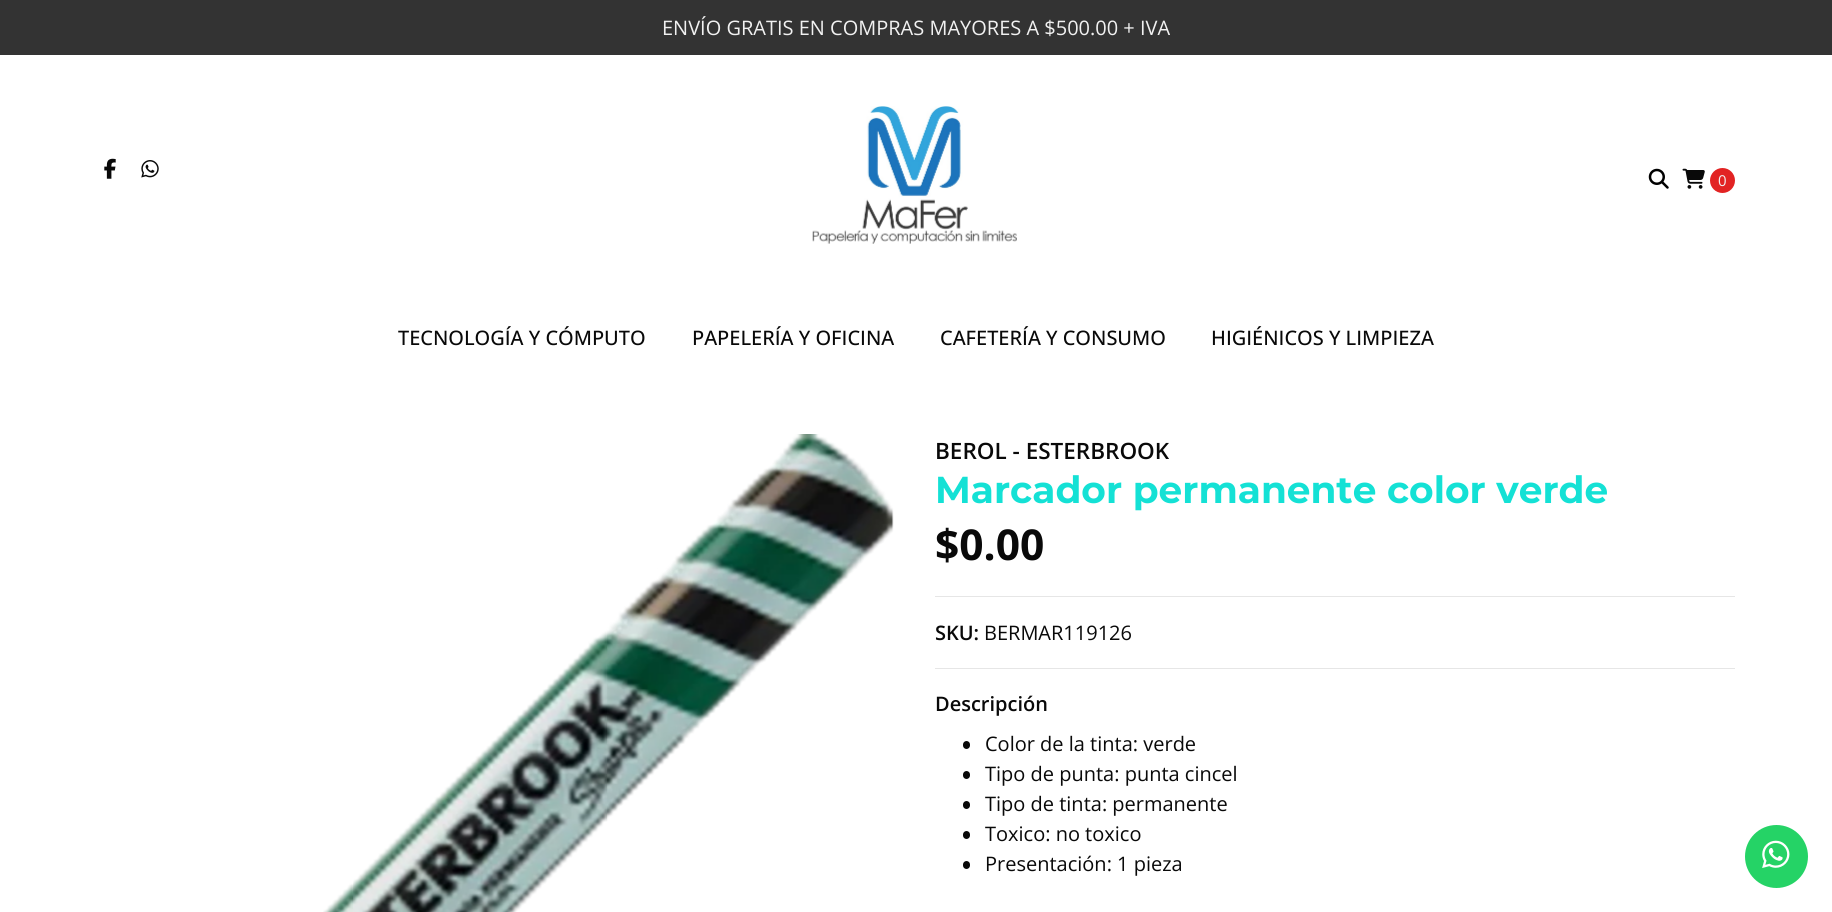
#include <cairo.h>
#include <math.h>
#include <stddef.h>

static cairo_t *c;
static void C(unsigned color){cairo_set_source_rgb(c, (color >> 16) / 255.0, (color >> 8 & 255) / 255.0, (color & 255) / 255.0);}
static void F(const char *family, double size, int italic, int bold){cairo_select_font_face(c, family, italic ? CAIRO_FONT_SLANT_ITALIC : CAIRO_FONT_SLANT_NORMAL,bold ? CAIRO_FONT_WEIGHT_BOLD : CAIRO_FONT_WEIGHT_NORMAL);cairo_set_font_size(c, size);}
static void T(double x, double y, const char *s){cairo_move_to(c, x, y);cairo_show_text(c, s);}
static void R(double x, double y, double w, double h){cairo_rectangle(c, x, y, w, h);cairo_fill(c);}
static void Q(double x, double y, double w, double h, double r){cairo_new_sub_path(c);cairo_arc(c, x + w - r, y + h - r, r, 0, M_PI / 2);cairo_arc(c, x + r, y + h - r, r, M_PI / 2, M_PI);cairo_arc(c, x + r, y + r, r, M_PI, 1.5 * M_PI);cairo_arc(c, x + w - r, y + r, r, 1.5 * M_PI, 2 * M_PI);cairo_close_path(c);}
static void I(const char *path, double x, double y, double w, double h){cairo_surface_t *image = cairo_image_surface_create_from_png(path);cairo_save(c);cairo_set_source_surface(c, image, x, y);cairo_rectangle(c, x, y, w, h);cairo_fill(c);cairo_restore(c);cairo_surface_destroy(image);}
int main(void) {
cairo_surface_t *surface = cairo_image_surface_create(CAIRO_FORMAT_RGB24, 1832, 912);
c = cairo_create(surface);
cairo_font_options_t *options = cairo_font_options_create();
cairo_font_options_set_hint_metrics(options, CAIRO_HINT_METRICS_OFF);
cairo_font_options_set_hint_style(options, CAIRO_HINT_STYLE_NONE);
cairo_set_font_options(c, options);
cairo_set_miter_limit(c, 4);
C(0xffffff);
cairo_paint(c);
C(0x333333);
R(0,0,1832,55);
F("Open Sans",20,0,0);
C(0xf1f1f1);
T(662,35,"ENVÍO GRATIS EN COMPRAS MAYORES A $500.00 + IVA");
I("1.png",104,158,12,21);
I("2.png",141,160,18,18);
I("3.png",812,106,205,138);
I("4.png",1648,168,21,21);
I("5.png",1682,168,23,21);
C(0xe22323);
cairo_arc(c,1722.5,180.5,12.5,0,2 * M_PI);
cairo_fill(c);
F("Open Sans",15,0,0);
C(0xf1f1f1);
T(1718,186,"0");
F("Open Sans Medium",20,0,0);
C(0x090909);
T(398,345,"TECNOLOGÍA Y CÓMPUTO");
T(692,345,"PAPELERÍA Y OFICINA");
T(940,345,"CAFETERÍA Y CONSUMO");
T(1211,345,"HIGIÉNICOS Y LIMPIEZA");
I("6.png",323,434,571,478);
C(0xe6e6e6);
R(935,596,800,1);
F("Open Sans SemiBold",22.5,0,0);
C(0x090909);
T(935,459,"BEROL - ESTERBROOK");
F("Montserrat",37.5,0,1);
C(0x14e1d5);
T(935,503,"Marcador permanente color verde");
F("Open Sans",42.5,0,1);
C(0x090909);
T(935,560,"$0.00");
C(0xe6e6e6);
R(935,668,800,1);
F("Open Sans SemiBold",20,0,0);
C(0x090909);
T(935,640,"SKU:");
F("Open Sans",20,0,0);
T(984,640,"BERMAR119126");
F("Open Sans SemiBold",20,0,0);
T(935,711,"Descripción");
Q(963,741,7,8,3.5);
cairo_fill(c);
F("Open Sans",20,0,0);
T(985,751,"Color de la tinta: verde");
Q(963,771,7,8,3.5);
cairo_fill(c);
T(985,781,"Tipo de punta: punta cincel");
Q(963,801,7,8,3.5);
cairo_fill(c);
T(985,811,"Tipo de tinta: permanente");
Q(963,831,7,8,3.5);
cairo_fill(c);
T(985,841,"Toxico: no toxico");
Q(963,861,7,8,3.5);
cairo_fill(c);
T(985,871,"Presentación: 1 pieza");
C(0x25d366);
cairo_new_path(c);
cairo_arc(c,1776.5,856.5,31.5,0,2 * M_PI);
cairo_fill(c);
I("7.png",1762,840,28,28);
cairo_surface_write_to_png(surface, "o.png");
cairo_font_options_destroy(options);
cairo_destroy(c);
cairo_surface_destroy(surface);
return 0;
}
